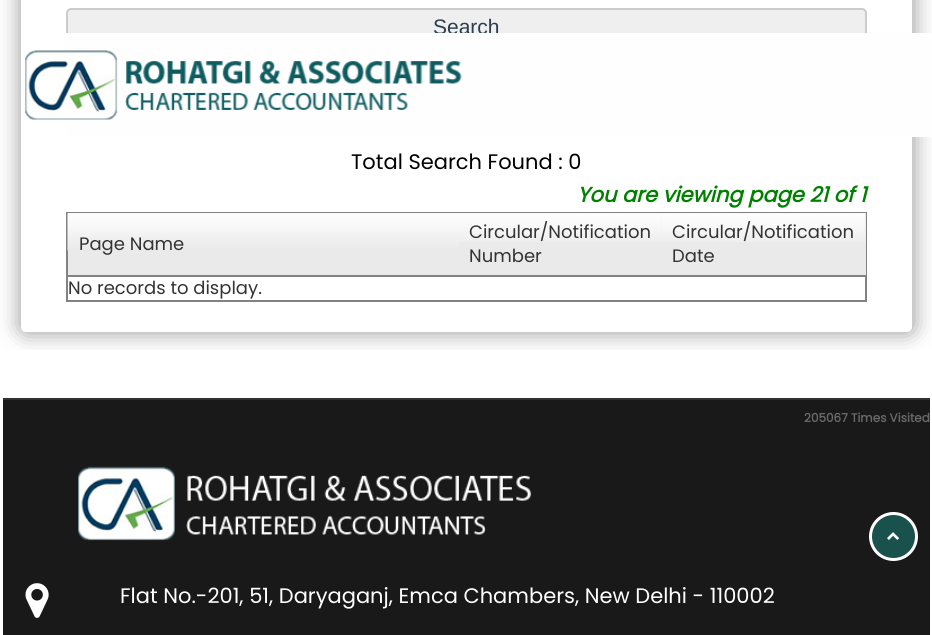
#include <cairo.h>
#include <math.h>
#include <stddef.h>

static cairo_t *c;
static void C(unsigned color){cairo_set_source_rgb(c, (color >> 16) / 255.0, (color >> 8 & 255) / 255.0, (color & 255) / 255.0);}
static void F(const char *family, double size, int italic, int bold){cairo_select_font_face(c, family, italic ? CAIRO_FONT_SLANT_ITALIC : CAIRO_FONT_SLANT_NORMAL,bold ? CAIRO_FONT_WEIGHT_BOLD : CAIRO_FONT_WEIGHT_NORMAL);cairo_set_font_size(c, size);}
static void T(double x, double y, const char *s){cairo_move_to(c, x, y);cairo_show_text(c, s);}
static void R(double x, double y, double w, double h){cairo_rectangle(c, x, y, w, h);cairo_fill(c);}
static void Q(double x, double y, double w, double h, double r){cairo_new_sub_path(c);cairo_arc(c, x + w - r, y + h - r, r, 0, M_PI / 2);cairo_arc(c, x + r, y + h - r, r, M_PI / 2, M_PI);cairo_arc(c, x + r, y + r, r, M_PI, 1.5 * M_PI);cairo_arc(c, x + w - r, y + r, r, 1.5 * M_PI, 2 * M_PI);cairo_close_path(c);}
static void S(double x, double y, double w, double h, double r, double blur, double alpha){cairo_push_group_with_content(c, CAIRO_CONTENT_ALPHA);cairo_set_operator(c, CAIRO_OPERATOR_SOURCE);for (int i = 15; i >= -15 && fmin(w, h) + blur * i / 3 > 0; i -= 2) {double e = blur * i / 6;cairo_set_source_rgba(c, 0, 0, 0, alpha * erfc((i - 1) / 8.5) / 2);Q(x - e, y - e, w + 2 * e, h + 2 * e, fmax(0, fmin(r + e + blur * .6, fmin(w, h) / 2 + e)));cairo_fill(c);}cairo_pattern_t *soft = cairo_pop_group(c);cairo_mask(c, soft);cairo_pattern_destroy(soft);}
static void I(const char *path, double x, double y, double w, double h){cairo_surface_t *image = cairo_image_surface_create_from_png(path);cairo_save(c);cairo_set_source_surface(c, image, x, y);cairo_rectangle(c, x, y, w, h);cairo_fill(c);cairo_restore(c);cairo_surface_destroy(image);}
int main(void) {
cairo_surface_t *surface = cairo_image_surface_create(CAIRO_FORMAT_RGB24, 932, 635);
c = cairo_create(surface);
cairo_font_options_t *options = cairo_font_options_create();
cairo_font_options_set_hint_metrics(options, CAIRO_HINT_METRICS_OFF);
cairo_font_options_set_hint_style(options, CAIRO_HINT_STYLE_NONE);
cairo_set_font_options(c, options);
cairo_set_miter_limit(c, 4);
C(0xffffff);
cairo_paint(c);
cairo_save(c);
cairo_rectangle(c,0,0,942,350);
cairo_clip(c);
C(0x000000);
S(20,-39,894,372,6,11,.4);
cairo_restore(c);
C(0xffffff);
Q(21,-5,891,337,5);
cairo_fill(c);
C(0xefefef);
Q(67,9,799,37,4);
cairo_fill_preserve(c);
C(0xcccccc);
cairo_stroke(c);
F("Liberation Sans",21,0,0);
C(0x2c3e50);
T(433,34,"Search");
F("Poppins",21,0,0);
C(0x000000);
T(351,169,"Total Search Found : 0");
F("Poppins",21,1,1);
C(0x008000);
T(577,202,"You are viewing page 21 of 1");
cairo_rectangle(c,67,213,799,88);
C(0x828282);
cairo_stroke(c);
C(0xeaeaea);
R(68,213,798,62);
I("1.png",67,213,392,38);
C(0x828282);
R(68,275,798,2);
F("Poppins",18,0,0);
C(0x333333);
T(79,250,"Page Name");
I("2.png",459,213,203,29);
T(469,238,"Circular/Notification");
T(469,262,"Number");
I("3.png",661,213,204,29);
T(672,238,"Circular/Notification");
T(672,262,"Date");
T(68,294,"No records to display.");
C(0xfefefe);
R(66,33,866,104);
I("4.png",25,50,437,70);
C(0x191919);
R(3,400,927,235);
F("Poppins",12,0,1);
C(0x696969);
T(804,422,"205067 Times Visited");
C(0x19514d);
cairo_new_path(c);
cairo_arc(c,893.5,536.5,23,0,2 * M_PI);
cairo_fill_preserve(c);
C(0xffffff);
cairo_set_line_width(c,3);
cairo_stroke(c);
I("5.png",887,532,12,8);
C(0x313131);
R(3,398,927,2);
I("6.png",78,466,454,75);
I("7.png",25,583,24,35);
F("Poppins",21,0,0);
C(0xffffff);
T(120,603,"Flat No.-201, 51, Daryaganj, Emca Chambers, New Delhi - 110002");
cairo_surface_write_to_png(surface, "o.png");
cairo_font_options_destroy(options);
cairo_destroy(c);
cairo_surface_destroy(surface);
return 0;
}
